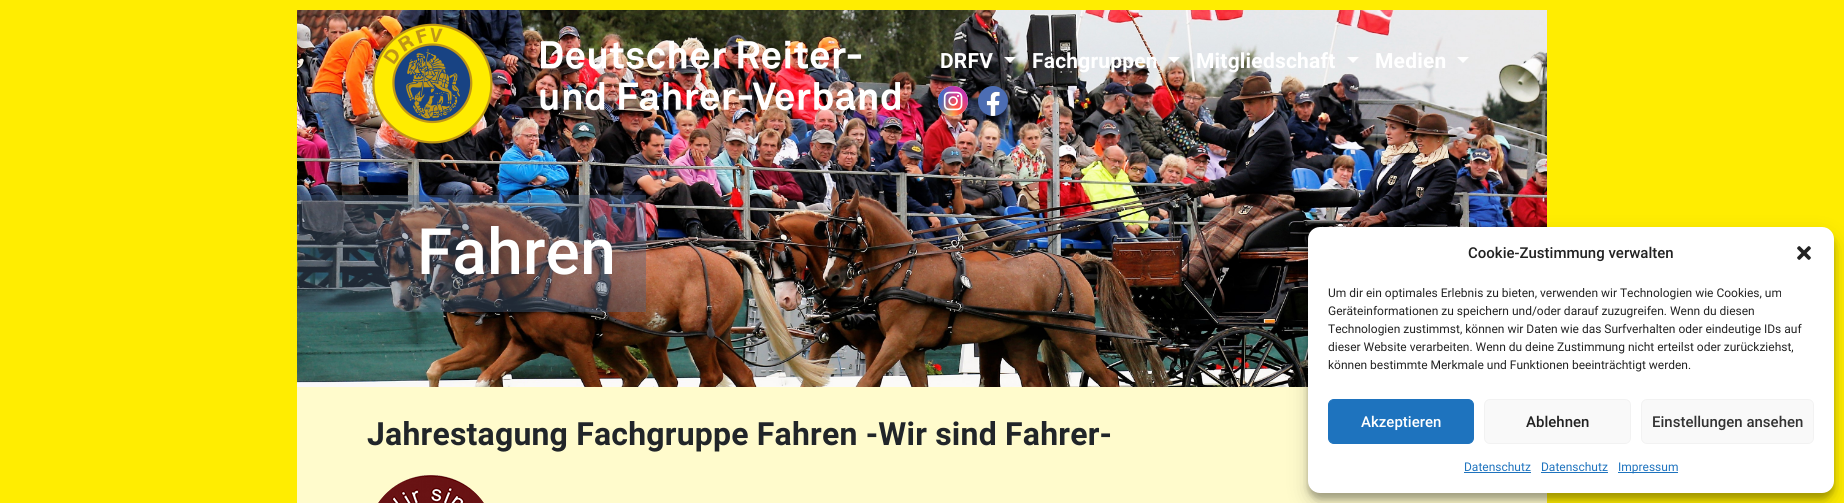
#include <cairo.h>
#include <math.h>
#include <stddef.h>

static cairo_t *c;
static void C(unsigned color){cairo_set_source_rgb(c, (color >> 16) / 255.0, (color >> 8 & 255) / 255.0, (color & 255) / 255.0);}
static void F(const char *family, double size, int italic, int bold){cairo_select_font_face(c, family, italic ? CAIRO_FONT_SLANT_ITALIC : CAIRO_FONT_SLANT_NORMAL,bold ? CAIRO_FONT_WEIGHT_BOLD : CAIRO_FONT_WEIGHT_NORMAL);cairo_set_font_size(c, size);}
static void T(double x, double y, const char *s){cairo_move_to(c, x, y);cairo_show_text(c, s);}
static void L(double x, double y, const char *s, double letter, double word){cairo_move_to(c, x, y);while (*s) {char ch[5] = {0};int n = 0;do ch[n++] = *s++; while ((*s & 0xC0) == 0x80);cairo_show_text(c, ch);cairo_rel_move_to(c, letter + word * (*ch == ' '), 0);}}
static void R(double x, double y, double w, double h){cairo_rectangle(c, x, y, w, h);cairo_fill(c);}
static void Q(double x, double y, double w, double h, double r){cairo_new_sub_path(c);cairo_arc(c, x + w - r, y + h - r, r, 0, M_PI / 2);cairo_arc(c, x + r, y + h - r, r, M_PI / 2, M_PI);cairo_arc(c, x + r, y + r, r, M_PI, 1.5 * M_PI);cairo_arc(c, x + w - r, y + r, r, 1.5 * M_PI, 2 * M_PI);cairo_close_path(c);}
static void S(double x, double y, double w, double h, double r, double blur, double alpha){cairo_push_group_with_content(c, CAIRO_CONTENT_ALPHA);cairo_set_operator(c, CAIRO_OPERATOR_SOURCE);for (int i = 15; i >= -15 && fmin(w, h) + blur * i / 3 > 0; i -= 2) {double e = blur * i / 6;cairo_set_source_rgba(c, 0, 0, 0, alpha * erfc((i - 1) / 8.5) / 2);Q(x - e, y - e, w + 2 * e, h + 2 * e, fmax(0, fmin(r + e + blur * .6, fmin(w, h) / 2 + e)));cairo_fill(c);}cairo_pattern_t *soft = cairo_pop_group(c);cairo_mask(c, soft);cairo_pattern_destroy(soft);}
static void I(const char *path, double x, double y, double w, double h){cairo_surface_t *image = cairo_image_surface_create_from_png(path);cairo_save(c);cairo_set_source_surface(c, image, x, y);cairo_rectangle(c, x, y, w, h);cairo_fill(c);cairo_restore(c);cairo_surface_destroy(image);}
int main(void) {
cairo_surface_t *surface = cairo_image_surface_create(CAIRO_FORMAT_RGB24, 1844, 503);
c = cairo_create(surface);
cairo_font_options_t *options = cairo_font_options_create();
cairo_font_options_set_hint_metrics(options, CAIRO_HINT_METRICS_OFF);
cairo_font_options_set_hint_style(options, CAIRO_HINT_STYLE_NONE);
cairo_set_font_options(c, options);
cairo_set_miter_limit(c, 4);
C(0xffed01);
cairo_paint(c);
C(0xfffbcc);
R(297,387,1250,116);
I("4.png",297,10,1250,377);
I("1.png",372,23,528,121);
F("Roboto",21,0,1);
C(0xffffff);
L(940,68,"DRFV",.2,0);
cairo_new_path(c);
cairo_move_to(c,1004,57);
cairo_line_to(c,1016,57);
cairo_line_to(c,1010,63);
cairo_close_path(c);
cairo_fill(c);
L(1032,68,"Fachgruppen",.2,0);
cairo_new_path(c);
cairo_move_to(c,1168,57);
cairo_line_to(c,1180,57);
cairo_line_to(c,1174,63);
cairo_close_path(c);
cairo_fill(c);
L(1196,68,"Mitgliedschaft",.2,0);
cairo_new_path(c);
cairo_move_to(c,1347,57);
cairo_line_to(c,1359,57);
cairo_line_to(c,1353,63);
cairo_close_path(c);
cairo_fill(c);
L(1375,68,"Medien",.2,0);
cairo_new_path(c);
cairo_move_to(c,1457,57);
cairo_line_to(c,1469,57);
cairo_line_to(c,1463,63);
cairo_close_path(c);
cairo_fill(c);
I("2.png",938,86,30,30);
I("3.png",978,86,30,30);
cairo_set_source_rgba(c,0.31,0.392,0.514,0.4);
R(297,195,349,117);
F("Roboto Medium",64,0,0);
C(0xffffff);
L(417,274,"Fahren",.2,0);
F("Roboto",32,0,1);
C(0x212529);
L(367,445,"Jahrestagung Fachgruppe Fahren -Wir sind Fahrer-",.2,0);
I("5.png",378,475,106,28);
C(0x000000);
S(1308,233,526,266,12,3,.23);
S(1308,237,526,266,12,10,.19);
C(0xffffff);
Q(1308,227,526,266,12);
cairo_fill(c);
F("Roboto Medium",15,0,0);
C(0x222222);
T(1468,258,"Cookie-Zustimmung verwalten");
I("6.png",1797,246,14,14);
F("Roboto",12,0,0);
T(1328,297,"Um dir ein optimales Erlebnis zu bieten, verwenden wir Technologien wie Cookies, um");
T(1328,315,"Geräteinformationen zu speichern und/oder darauf zuzugreifen. Wenn du diesen");
T(1328,333,"Technologien zustimmst, können wir Daten wie das Surfverhalten oder eindeutige IDs auf");
T(1328,351,"dieser Website verarbeiten. Wenn du deine Zustimmung nicht erteilst oder zurückziehst,");
T(1328,369,"können bestimmte Merkmale und Funktionen beeinträchtigt werden.");
C(0x1e73be);
Q(1328.5,399.5,145,44,5.5);
cairo_fill_preserve(c);
cairo_set_line_width(c,1);
cairo_stroke(c);
F("Roboto Medium",15,0,0);
C(0xffffff);
T(1361,427,"Akzeptieren");
C(0xf9f9f9);
Q(1484.5,399.5,146,44,5.5);
cairo_fill_preserve(c);
C(0xf2f2f2);
cairo_stroke(c);
C(0x222222);
T(1526,427,"Ablehnen");
C(0xf9f9f9);
Q(1641.5,399.5,172,44,5.5);
cairo_fill_preserve(c);
C(0xf2f2f2);
cairo_stroke(c);
C(0x333333);
T(1652,427,"Einstellungen ansehen");
F("Roboto",12,0,0);
C(0x1e73be);
T(1464,471,"Datenschutz");
R(1464,472,67,1);
T(1541,471,"Datenschutz");
R(1541,472,67,1);
R(1618,472,60,1);
T(1618,471,"Impressum");
cairo_surface_write_to_png(surface, "o.png");
cairo_font_options_destroy(options);
cairo_destroy(c);
cairo_surface_destroy(surface);
return 0;
}
